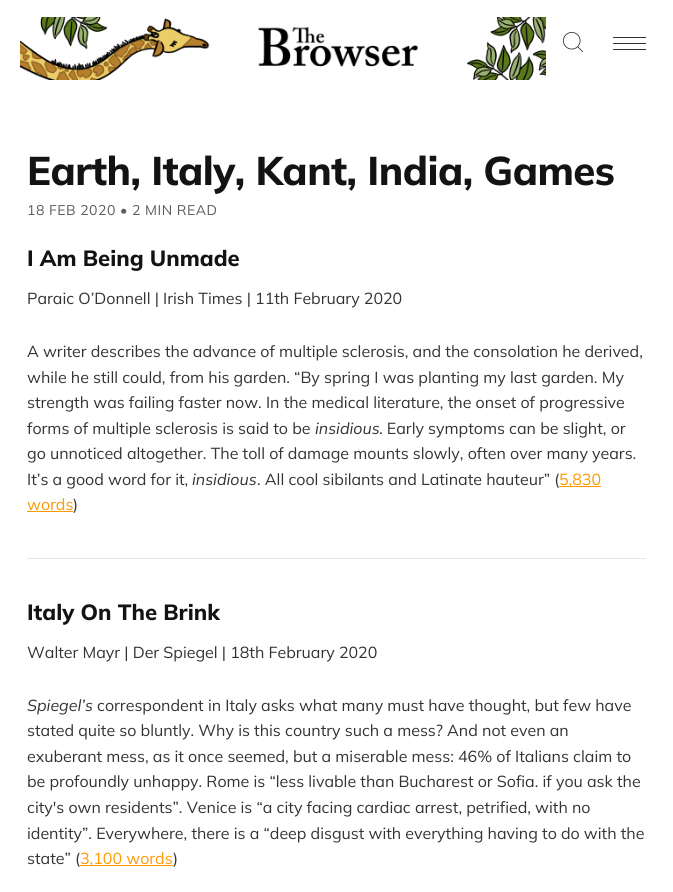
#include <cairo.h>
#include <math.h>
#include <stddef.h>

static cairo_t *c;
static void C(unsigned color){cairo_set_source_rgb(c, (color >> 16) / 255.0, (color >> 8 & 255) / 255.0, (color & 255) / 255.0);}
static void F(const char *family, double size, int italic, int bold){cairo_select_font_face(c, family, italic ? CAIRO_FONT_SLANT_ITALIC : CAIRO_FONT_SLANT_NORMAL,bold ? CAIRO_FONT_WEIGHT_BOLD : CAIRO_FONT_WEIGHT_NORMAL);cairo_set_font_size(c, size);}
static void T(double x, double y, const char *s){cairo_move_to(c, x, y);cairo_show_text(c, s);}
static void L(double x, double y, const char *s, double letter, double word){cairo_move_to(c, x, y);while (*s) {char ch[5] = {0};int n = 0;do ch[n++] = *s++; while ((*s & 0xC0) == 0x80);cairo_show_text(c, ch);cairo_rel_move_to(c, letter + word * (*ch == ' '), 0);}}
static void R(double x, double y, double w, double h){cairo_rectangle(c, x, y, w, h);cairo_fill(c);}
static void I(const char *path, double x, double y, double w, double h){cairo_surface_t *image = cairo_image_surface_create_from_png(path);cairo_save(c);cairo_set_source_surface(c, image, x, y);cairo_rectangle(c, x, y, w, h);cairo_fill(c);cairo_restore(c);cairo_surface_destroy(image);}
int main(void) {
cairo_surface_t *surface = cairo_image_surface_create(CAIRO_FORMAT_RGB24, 673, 892);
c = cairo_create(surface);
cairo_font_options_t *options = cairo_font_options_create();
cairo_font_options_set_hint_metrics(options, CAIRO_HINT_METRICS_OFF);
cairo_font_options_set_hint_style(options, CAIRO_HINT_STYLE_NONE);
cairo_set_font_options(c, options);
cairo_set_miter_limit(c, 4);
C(0xffffff);
cairo_paint(c);
I("1.png",20,17,526,63);
I("2.png",563,32,20,20);
C(0x333333);
R(613,37,33,1);
R(613,49,33,1);
R(613,43,33,1);
F("Mulish ExtraBold",40,0,0);
C(0x131313);
L(27,185,"Earth, Italy, Kant, India, Games",-.5,0);
F("Mulish",14,0,0);
C(0x5c5c5c);
L(27,215,"18 FEB 2020 • 2 MIN READ",.5,0);
F("Mulish ExtraBold",22,0,0);
C(0x131313);
T(27,266,"I Am Being Unmade");
F("Mulish",16,0,0);
C(0x333333);
T(27,304,"Paraic O’Donnell | Irish Times | 11th February 2020");
T(27,357,"A writer describes the advance of multiple sclerosis, and the consolation he derived,");
T(27,383,"while he still could, from his garden. “By spring I was planting my last garden. My");
T(27,408,"strength was failing faster now. In the medical literature, the onset of progressive");
T(27,434,"forms of multiple sclerosis is said to be");
F("Mulish",16,1,0);
T(315,434,"insidious");
F("Mulish",16,0,0);
T(379,434,". Early symptoms can be slight, or");
T(27,459,"go unnoticed altogether. The toll of damage mounts slowly, often over many years.");
T(27,485,"It’s a good word for it,");
F("Mulish",16,1,0);
T(192,485,"insidious");
F("Mulish",16,0,0);
T(257,485,". All cool sibilants and Latinate hauteur” (");
C(0xff9900);
R(559,486,42,1);
T(559,485,"5,830");
T(27,510,"words");
R(27,511,46,1);
C(0x333333);
T(73,510,")");
C(0xe6e6e6);
R(27,558,619,1);
F("Mulish ExtraBold",22,0,0);
C(0x131313);
T(27,620,"Italy On The Brink");
F("Mulish",16,0,0);
C(0x333333);
T(27,658,"Walter Mayr | Der Spiegel | 18th February 2020");
F("Mulish",16,1,0);
T(27,711,"Spiegel’s");
F("Mulish",16,0,0);
T(97,711,"correspondent in Italy asks what many must have thought, but few have");
T(27,736,"stated quite so bluntly. Why is this country such a mess? And not even an");
T(27,762,"exuberant mess, as it once seemed, but a miserable mess: 46% of Italians claim to");
T(27,787,"be profoundly unhappy. Rome is “less livable than Bucharest or Sofia. if you ask the");
T(27,813,"city's own residents”. Venice is “a city facing cardiac arrest, petrified, with no");
T(27,839,"identity”. Everywhere, there is a “deep disgust with everything having to do with the");
T(27,864,"state” (");
C(0xff9900);
R(80,865,93,1);
T(80,864,"3,100 words");
C(0x333333);
T(173,864,")");
cairo_surface_write_to_png(surface, "o.png");
cairo_font_options_destroy(options);
cairo_destroy(c);
cairo_surface_destroy(surface);
return 0;
}
